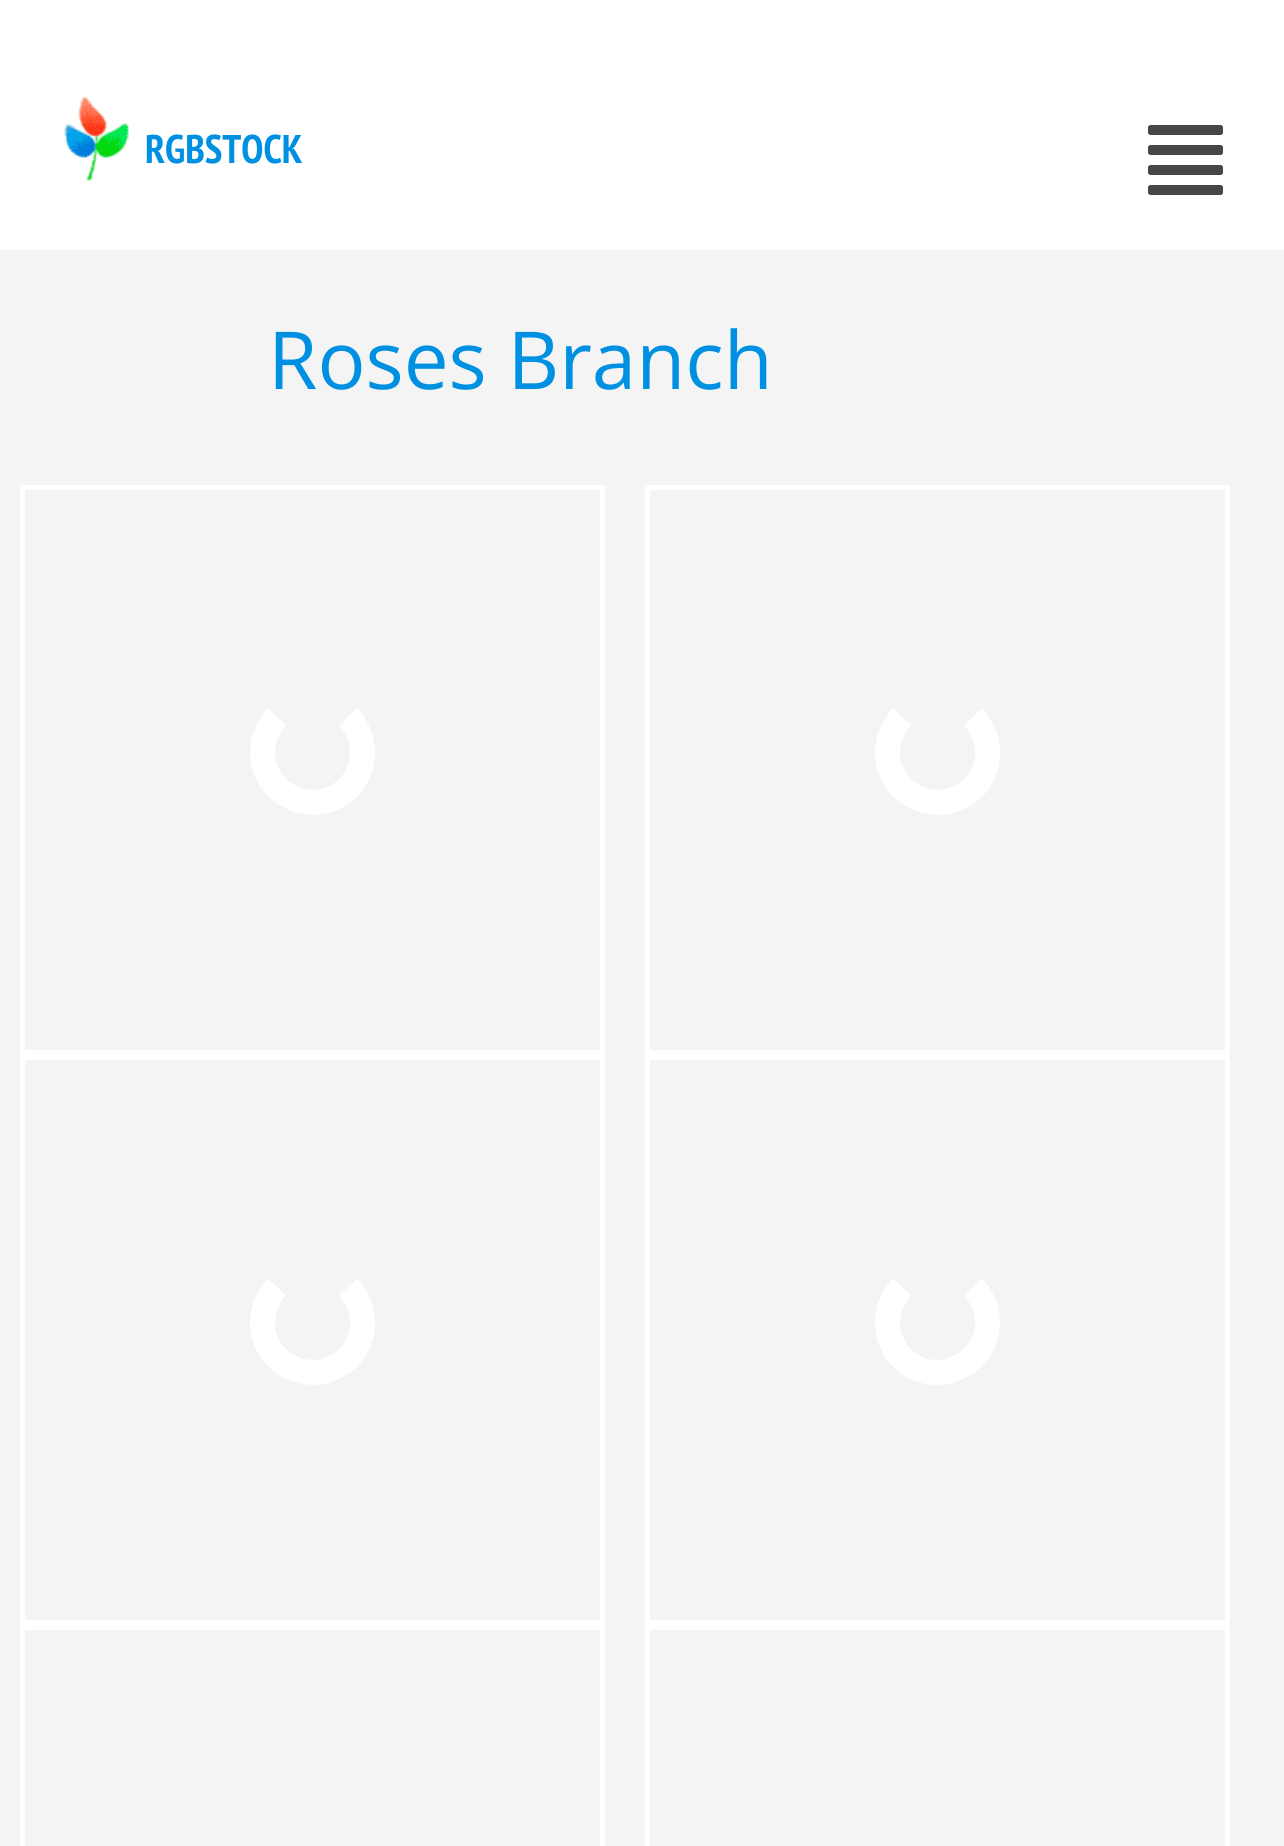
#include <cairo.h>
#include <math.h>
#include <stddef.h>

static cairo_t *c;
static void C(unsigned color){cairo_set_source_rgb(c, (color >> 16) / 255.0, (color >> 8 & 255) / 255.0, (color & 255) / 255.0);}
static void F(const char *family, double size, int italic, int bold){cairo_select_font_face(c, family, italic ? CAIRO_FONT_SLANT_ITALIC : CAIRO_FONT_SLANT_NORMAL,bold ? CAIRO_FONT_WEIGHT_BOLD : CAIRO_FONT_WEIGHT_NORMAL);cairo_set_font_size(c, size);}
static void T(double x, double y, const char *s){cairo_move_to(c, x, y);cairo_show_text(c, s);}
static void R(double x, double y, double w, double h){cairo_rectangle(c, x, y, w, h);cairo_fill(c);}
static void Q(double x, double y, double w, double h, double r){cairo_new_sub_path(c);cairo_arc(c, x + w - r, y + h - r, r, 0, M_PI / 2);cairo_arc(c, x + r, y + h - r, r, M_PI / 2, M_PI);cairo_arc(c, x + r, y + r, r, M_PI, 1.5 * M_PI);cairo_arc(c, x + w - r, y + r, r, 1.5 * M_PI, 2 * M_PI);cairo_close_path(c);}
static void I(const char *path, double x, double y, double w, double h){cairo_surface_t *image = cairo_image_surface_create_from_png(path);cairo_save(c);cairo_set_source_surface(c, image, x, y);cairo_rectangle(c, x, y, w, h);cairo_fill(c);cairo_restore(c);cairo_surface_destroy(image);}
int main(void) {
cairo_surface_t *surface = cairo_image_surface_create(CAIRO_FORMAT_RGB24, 1284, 1846);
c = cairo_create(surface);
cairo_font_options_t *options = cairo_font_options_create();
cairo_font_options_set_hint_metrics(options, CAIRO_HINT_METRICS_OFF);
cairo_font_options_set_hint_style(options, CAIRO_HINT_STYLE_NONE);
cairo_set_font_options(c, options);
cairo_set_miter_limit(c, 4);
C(0xf4f4f4);
cairo_paint(c);
C(0xffffff);
R(0,0,1284,250);
C(0x474747);
Q(1148,125,75,10,2.5);
cairo_fill(c);
Q(1148,145,75,10,2.5);
cairo_fill(c);
Q(1148,165,75,10,2.5);
cairo_fill(c);
Q(1148,185,75,10,2.5);
cairo_fill(c);
I("1.png",64,96,65,85);
F("PT Sans Narrow",40,0,1);
C(0x0090e2);
T(145,163,"RGBSTOCK");
F("Open Sans",80,0,0);
T(268,389,"Roses Branch");
cairo_rectangle(c,22.5,487.5,580,565);
C(0xffffff);
cairo_set_line_width(c,5);
cairo_stroke(c);
cairo_new_path(c);
cairo_move_to(c,348,717);
cairo_curve_to(c,359.5,729,365,746,361.5,762.5);
cairo_curve_to(c,359.5,772,355,781,348,788);
cairo_curve_to(c,316.5,819,262.5,796.5,262.5,752.5);
cairo_curve_to(c,262.5,739.5,268,726.5,277,717);
cairo_set_line_width(c,25);
cairo_stroke(c);
cairo_rectangle(c,647.5,487.5,580,565);
cairo_set_line_width(c,5);
cairo_stroke(c);
cairo_new_path(c);
cairo_move_to(c,973,717);
cairo_curve_to(c,984.5,729,990,746,986.5,762.5);
cairo_curve_to(c,984.5,772,980,781,973,788);
cairo_curve_to(c,941.5,819,887.5,796.5,887.5,752.5);
cairo_curve_to(c,887.5,739.5,893,726.5,902,717);
cairo_set_line_width(c,25);
cairo_stroke(c);
cairo_rectangle(c,22.5,1057.5,580,565);
cairo_set_line_width(c,5);
cairo_stroke(c);
cairo_new_path(c);
cairo_move_to(c,348,1287);
cairo_curve_to(c,359.5,1299,365,1316,361.5,1332.5);
cairo_curve_to(c,359.5,1342,355,1351,348,1358);
cairo_curve_to(c,316.5,1389,262.5,1366.5,262.5,1322.5);
cairo_curve_to(c,262.5,1309.5,268,1296.5,277,1287);
cairo_set_line_width(c,25);
cairo_stroke(c);
cairo_rectangle(c,647.5,1057.5,580,565);
cairo_set_line_width(c,5);
cairo_stroke(c);
cairo_new_path(c);
cairo_move_to(c,973,1287);
cairo_curve_to(c,982,1296.5,987.5,1309.5,987.5,1322.5);
cairo_curve_to(c,987.5,1366.5,933.5,1389,902,1358);
cairo_curve_to(c,895,1351,890.5,1342,888.5,1332.5);
cairo_curve_to(c,885,1316,890.5,1299,902,1287);
cairo_set_line_width(c,25);
cairo_stroke(c);
cairo_rectangle(c,22.5,1627.5,580,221);
cairo_set_line_width(c,5);
cairo_stroke(c);
cairo_rectangle(c,647.5,1627.5,580,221);
cairo_stroke(c);
cairo_surface_write_to_png(surface, "o.png");
cairo_font_options_destroy(options);
cairo_destroy(c);
cairo_surface_destroy(surface);
return 0;
}
